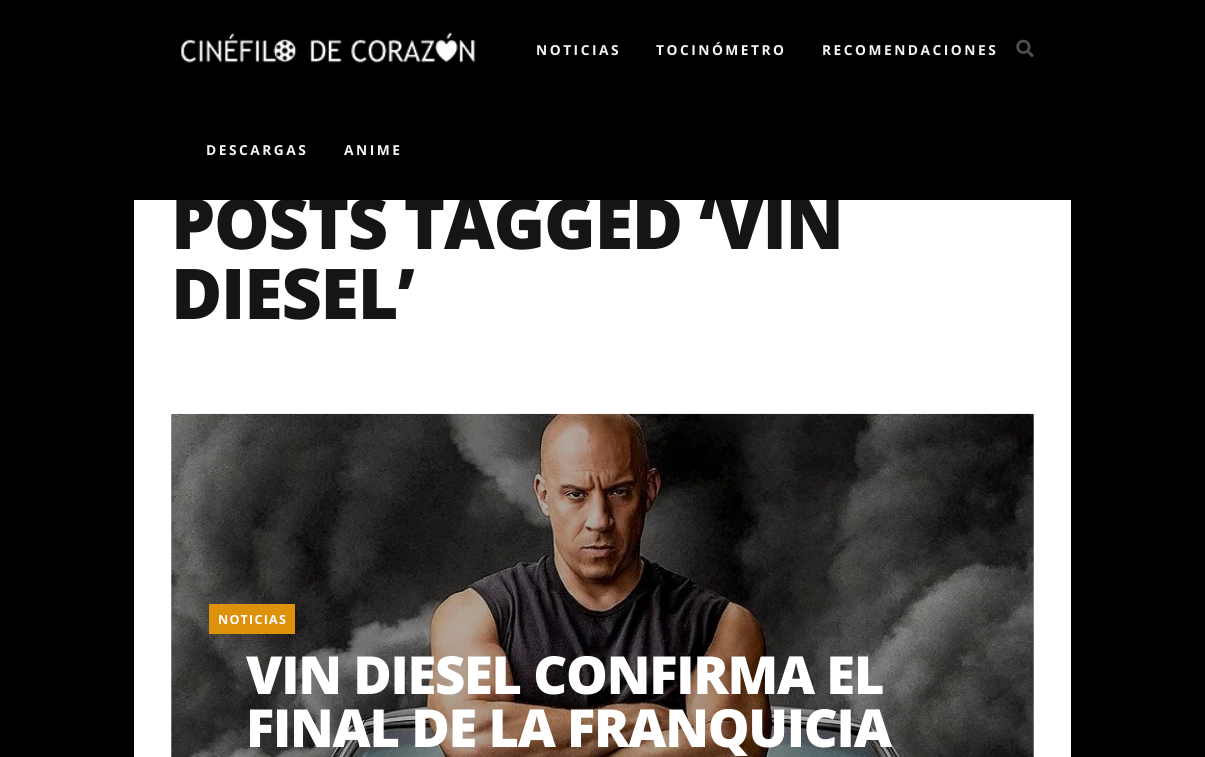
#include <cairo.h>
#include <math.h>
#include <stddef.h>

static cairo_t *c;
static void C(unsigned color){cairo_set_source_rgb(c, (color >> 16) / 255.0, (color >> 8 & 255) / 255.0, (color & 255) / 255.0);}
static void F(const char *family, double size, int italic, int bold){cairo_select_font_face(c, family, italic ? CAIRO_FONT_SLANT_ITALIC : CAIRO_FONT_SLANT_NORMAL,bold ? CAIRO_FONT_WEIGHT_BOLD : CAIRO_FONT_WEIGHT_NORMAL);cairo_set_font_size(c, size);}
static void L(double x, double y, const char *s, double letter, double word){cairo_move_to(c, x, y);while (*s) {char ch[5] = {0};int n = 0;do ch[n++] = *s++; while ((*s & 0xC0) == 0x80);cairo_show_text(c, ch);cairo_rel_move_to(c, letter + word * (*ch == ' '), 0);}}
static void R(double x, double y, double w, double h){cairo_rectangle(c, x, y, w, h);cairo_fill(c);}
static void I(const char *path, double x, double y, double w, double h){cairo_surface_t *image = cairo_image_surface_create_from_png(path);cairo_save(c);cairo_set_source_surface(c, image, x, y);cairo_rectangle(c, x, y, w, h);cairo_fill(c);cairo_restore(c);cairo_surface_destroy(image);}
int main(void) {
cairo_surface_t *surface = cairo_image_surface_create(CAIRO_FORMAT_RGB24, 1205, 757);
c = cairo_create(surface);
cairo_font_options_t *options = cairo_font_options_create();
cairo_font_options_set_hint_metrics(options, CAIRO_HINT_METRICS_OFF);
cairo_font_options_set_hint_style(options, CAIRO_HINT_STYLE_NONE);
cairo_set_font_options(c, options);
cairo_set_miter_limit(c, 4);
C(0x000000);
cairo_paint(c);
C(0xffffff);
R(134,200,937,557);
F("Open Sans ExtraBold",70,0,0);
C(0x151515);
L(171,249,"POSTS TAGGED ‘VIN",-1.25,0);
C(0x000000);
R(176,198,663,2);
I("1.png",181,32,295,31);
I("2.png",1016,39,18,18);
F("Open Sans",13.75,0,1);
C(0xf5f5f5);
L(536,55,"NOTICIAS",2.5,0);
L(656,55,"TOCINÓMETRO",2.5,0);
L(822,55,"RECOMENDACIONES",2.5,0);
L(206,155,"DESCARGAS",2.5,0);
L(344,155,"ANIME",2.5,0);
C(0xb3b3b3);
R(171,414,863,343);
F("Open Sans ExtraBold",70,0,0);
C(0x151515);
L(171,319,"DIESEL’",-1.25,0);
I("3.png",171,413,863,344);
C(0xde910b);
R(209,604,86,30);
F("Open Sans",12.5,0,1);
C(0xffffff);
L(218,624,"NOTICIAS",1.25,0);
F("Open Sans ExtraBold",52.5,0,0);
L(246,694,"VIN DIESEL CONFIRMA EL",-1.25,0);
L(246,747,"FINAL DE LA FRANQUICIA",-1.25,0);
cairo_surface_write_to_png(surface, "o.png");
cairo_font_options_destroy(options);
cairo_destroy(c);
cairo_surface_destroy(surface);
return 0;
}
